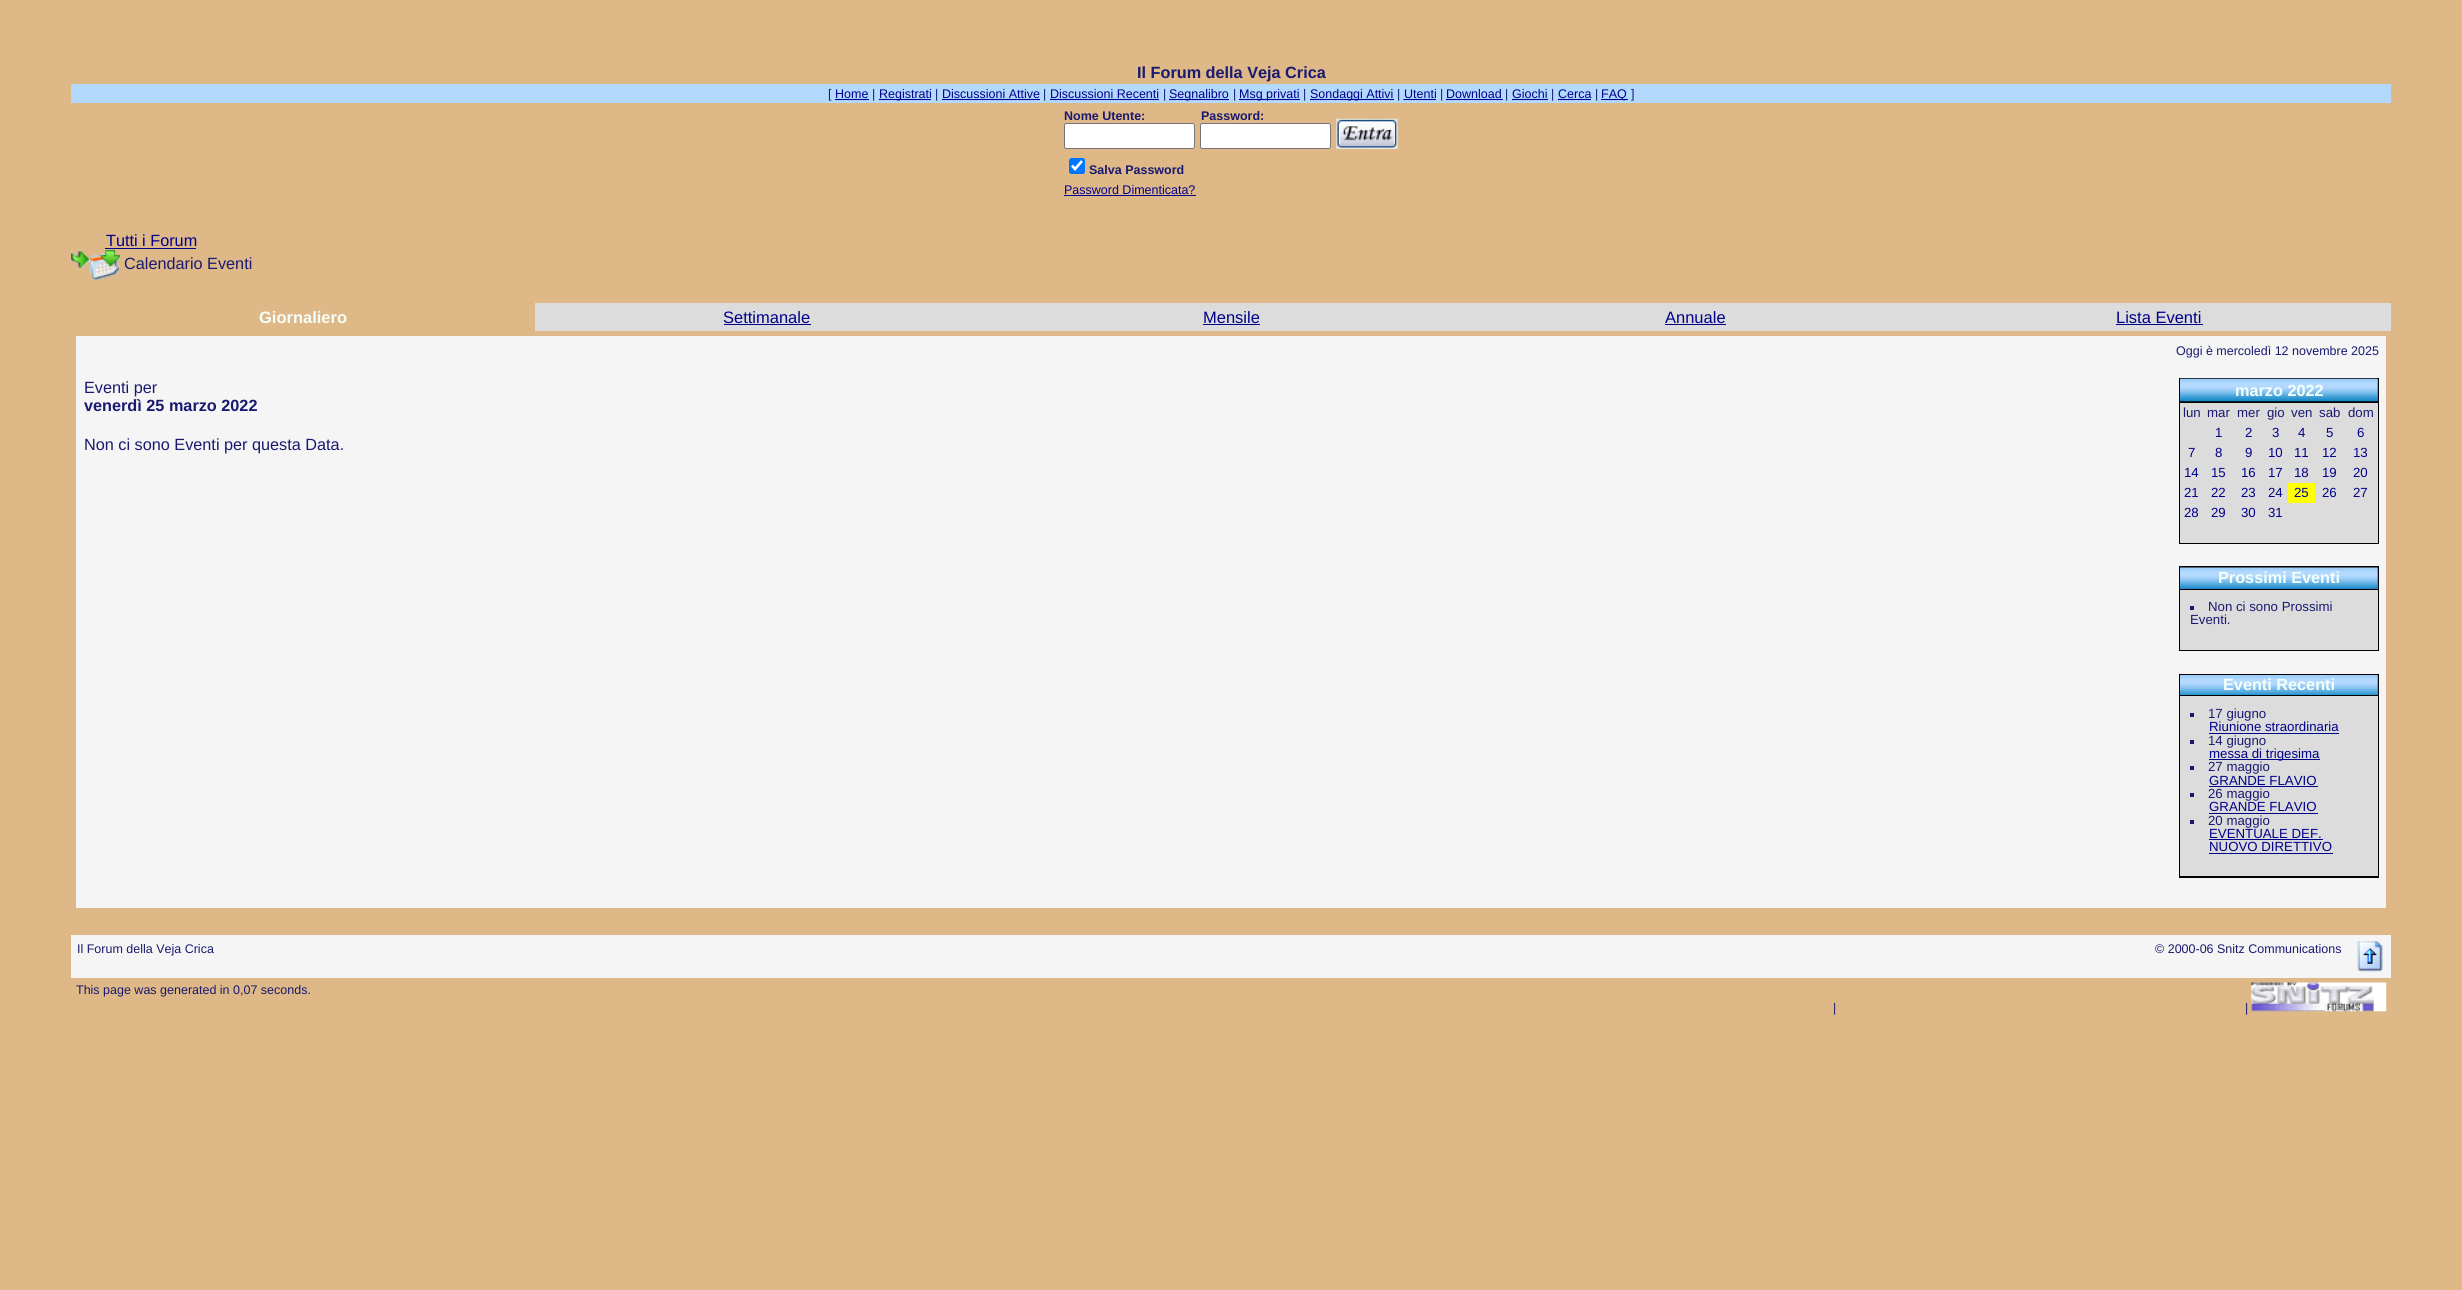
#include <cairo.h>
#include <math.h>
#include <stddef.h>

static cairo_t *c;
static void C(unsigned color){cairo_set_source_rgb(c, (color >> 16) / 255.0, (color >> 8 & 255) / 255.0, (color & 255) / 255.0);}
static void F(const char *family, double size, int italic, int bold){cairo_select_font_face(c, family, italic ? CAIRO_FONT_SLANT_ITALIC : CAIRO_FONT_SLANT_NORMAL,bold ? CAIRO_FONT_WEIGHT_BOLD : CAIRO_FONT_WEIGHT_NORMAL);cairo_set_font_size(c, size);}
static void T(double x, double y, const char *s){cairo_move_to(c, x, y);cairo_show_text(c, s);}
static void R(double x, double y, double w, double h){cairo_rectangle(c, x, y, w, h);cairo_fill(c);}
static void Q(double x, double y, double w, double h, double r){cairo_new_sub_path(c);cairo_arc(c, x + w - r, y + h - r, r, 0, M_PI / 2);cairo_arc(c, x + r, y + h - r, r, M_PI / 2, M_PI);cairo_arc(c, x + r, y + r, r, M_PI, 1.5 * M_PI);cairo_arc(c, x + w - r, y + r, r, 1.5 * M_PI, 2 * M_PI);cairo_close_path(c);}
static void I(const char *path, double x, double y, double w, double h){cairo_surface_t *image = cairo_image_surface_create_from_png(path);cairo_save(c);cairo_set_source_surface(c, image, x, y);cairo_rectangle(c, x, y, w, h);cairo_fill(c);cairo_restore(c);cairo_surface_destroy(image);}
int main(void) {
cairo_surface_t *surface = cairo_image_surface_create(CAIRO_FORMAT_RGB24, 2462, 1290);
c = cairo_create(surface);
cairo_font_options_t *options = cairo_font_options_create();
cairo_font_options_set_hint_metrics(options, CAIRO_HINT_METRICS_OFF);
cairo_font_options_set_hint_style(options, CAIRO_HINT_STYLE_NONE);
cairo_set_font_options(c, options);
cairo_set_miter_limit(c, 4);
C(0xdeb887);
cairo_paint(c);
F("Liberation Sans",16.25,0,1);
C(0x191970);
T(1137,78,"Il Forum della Veja Crica");
C(0xb3d9ff);
R(71,84,2320,19);
F("Liberation Sans",12.5,0,0);
C(0x191970);
T(828,98,"[");
cairo_new_path(c);
cairo_move_to(c,835.5,99.5);
cairo_line_to(c,868.5,99.5);
C(0x00008b);
cairo_set_line_width(c,1.2);
cairo_set_dash(c,(double[]){1.25,1.25},2,0);
cairo_stroke(c);
T(835,98,"Home");
R(835,99,34,1);
C(0x191970);
T(872,98,"|");
cairo_new_path(c);
cairo_move_to(c,879,99.5);
cairo_line_to(c,931.5,99.5);
C(0x00008b);
cairo_stroke(c);
R(879,99,52,1);
T(879,98,"Registrati");
C(0x191970);
T(935,98,"|");
cairo_new_path(c);
cairo_move_to(c,942,99.5);
cairo_line_to(c,1040,99.5);
C(0x00008b);
cairo_stroke(c);
T(942,98,"Discussioni Attive");
R(943,99,97,1);
C(0x191970);
T(1043,98,"|");
cairo_new_path(c);
cairo_move_to(c,1050,99.5);
cairo_line_to(c,1159,99.5);
C(0x00008b);
cairo_stroke(c);
T(1050,98,"Discussioni Recenti");
R(1050,99,109,1);
C(0x191970);
T(1163,98,"|");
cairo_new_path(c);
cairo_move_to(c,1169.5,99.5);
cairo_line_to(c,1229,99.5);
C(0x00008b);
cairo_stroke(c);
R(1169,99,60,1);
T(1169,98,"Segnalibro");
C(0x191970);
T(1233,98,"|");
cairo_new_path(c);
cairo_move_to(c,1239.5,99.5);
cairo_line_to(c,1300,99.5);
C(0x00008b);
cairo_stroke(c);
R(1239,99,61,1);
T(1239,98,"Msg privati");
C(0x191970);
T(1303,98,"|");
cairo_new_path(c);
cairo_move_to(c,1310,99.5);
cairo_line_to(c,1393.5,99.5);
C(0x00008b);
cairo_stroke(c);
R(1310,99,84,1);
T(1310,98,"Sondaggi Attivi");
C(0x191970);
T(1397,98,"|");
cairo_new_path(c);
cairo_move_to(c,1403.5,99.5);
cairo_line_to(c,1436,99.5);
C(0x00008b);
cairo_stroke(c);
T(1404,98,"Utenti");
R(1404,99,32,1);
C(0x191970);
T(1440,98,"|");
cairo_new_path(c);
cairo_move_to(c,1446.5,99.5);
cairo_line_to(c,1502,99.5);
C(0x00008b);
cairo_stroke(c);
T(1446,98,"Download");
R(1446,99,57,1);
C(0x191970);
T(1505,98,"|");
cairo_new_path(c);
cairo_move_to(c,1512,99.5);
cairo_line_to(c,1547.5,99.5);
C(0x00008b);
cairo_stroke(c);
T(1512,98,"Giochi");
R(1513,99,35,1);
C(0x191970);
T(1551,98,"|");
cairo_new_path(c);
cairo_move_to(c,1558,99.5);
cairo_line_to(c,1591,99.5);
C(0x00008b);
cairo_stroke(c);
T(1558,98,"Cerca");
R(1558,99,33,1);
C(0x191970);
T(1595,98,"|");
cairo_new_path(c);
cairo_move_to(c,1601.5,99.5);
cairo_line_to(c,1627,99.5);
C(0x00008b);
cairo_stroke(c);
R(1601,99,27,1);
T(1601,98,"FAQ");
C(0x191970);
T(1631,98,"]");
F("Liberation Sans",12.5,0,1);
T(1064,120,"Nome Utente:");
C(0xffffff);
Q(1064.5,123.5,130,25,2);
cairo_fill_preserve(c);
C(0x767676);
cairo_set_line_width(c,1);
cairo_set_dash(c,NULL,0,0);
cairo_stroke(c);
C(0x191970);
T(1201,120,"Password:");
C(0xffffff);
Q(1200.5,123.5,130,25,2);
cairo_fill_preserve(c);
C(0x767676);
cairo_stroke(c);
I("1.png",1336,118,62,31);
C(0x0075ff);
Q(1069,158,16,16,2.5);
cairo_fill(c);
cairo_new_path(c);
cairo_move_to(c,1072,165.5);
cairo_line_to(c,1075,169);
cairo_line_to(c,1082,161);
C(0xffffff);
cairo_set_line_width(c,2.6);
cairo_stroke(c);
C(0x191970);
T(1089,174,"Salva Password");
F("Liberation Sans",12.5,0,0);
C(0x00008b);
T(1064,194,"Password Dimenticata?");
R(1064,195,132,1);
F("Liberation Sans",16.25,0,0);
T(106,246,"Tutti i Forum");
R(105,248,91,1);
I("2.png",71,250,19,19);
I("3.png",90,250,30,30);
C(0x191970);
T(124,269,"Calendario Eventi");
F("Liberation Sans",16.5,0,1);
C(0xf5fffa);
T(259,323,"Giornaliero");
C(0xdcdcdc);
R(535,303,1856,28);
F("Liberation Sans",16.5,0,0);
C(0x00008b);
T(723,323,"Settimanale");
R(724,324,87,1);
T(1203,323,"Mensile");
R(1203,324,57,1);
T(1665,323,"Annuale");
R(1665,324,61,1);
T(2116,323,"Lista Eventi");
R(2116,324,87,1);
C(0xf5f5f5);
R(76,336,2310,572);
F("Liberation Sans",12.5,0,0);
C(0x191970);
T(2176,355,"Oggi è mercoledì 12 novembre 2025");
F("Liberation Sans",16.25,0,0);
T(84,393,"Eventi per");
F("Liberation Sans",16.25,0,1);
T(84,411,"venerdì 25 marzo 2022");
F("Liberation Sans",16.25,0,0);
T(84,450,"Non ci sono Eventi per questa Data.");
C(0x000000);
R(2179,378,200,166);
C(0x6a5acd);
R(2377,379,1,22);
I("4.png",2180,378,198,24);
F("Liberation Sans",16.25,0,1);
C(0xf5fffa);
T(2235,396,"marzo 2022");
C(0xdcdcdc);
R(2180,403,198,140);
F("Liberation Sans",13.25,0,0);
C(0x191970);
T(2183,417,"lun");
T(2207,417,"mar");
T(2237,417,"mer");
T(2267,417,"gio");
T(2291,417,"ven");
T(2319,417,"sab");
T(2348,417,"dom");
C(0x00008b);
T(2215,437,"1");
T(2245,437,"2");
T(2272,437,"3");
T(2298,437,"4");
T(2326,437,"5");
T(2357,437,"6");
T(2188,457,"7");
T(2215,457,"8");
T(2245,457,"9");
T(2268,457,"10");
T(2294,457,"11");
T(2322,457,"12");
T(2353,457,"13");
T(2184,477,"14");
T(2211,477,"15");
T(2241,477,"16");
T(2268,477,"17");
T(2294,477,"18");
T(2322,477,"19");
T(2353,477,"20");
T(2184,497,"21");
T(2211,497,"22");
T(2241,497,"23");
T(2268,497,"24");
C(0xffff00);
R(2288,483,27,20);
C(0x00008b);
T(2294,497,"25");
T(2322,497,"26");
T(2353,497,"27");
T(2184,517,"28");
T(2211,517,"29");
T(2241,517,"30");
T(2268,517,"31");
C(0x000000);
R(2179,566,200,85);
C(0x6a5acd);
R(2180,568,198,21);
I("5.png",2180,567,198,22);
F("Liberation Sans",16.25,0,1);
C(0xf5fffa);
T(2218,583,"Prossimi Eventi");
C(0xdcdcdc);
R(2180,590,198,60);
C(0x191970);
R(2190,606,4,4);
F("Liberation Sans",13.25,0,0);
T(2208,611,"Non ci sono Prossimi");
T(2190,624,"Eventi.");
C(0x000000);
R(2179,674,200,204);
C(0x6a5acd);
R(2377,675,1,20);
I("6.png",2180,675,198,20);
F("Liberation Sans",16.25,0,1);
C(0xf5fffa);
T(2223,690,"Eventi Recenti");
C(0xdcdcdc);
R(2180,696,198,180);
C(0x191970);
R(2190,713,4,4);
F("Liberation Sans",13.25,0,0);
T(2208,718,"17 giugno");
C(0x00008b);
T(2209,731,"Riunione straordinaria");
R(2209,733,130,1);
C(0x191970);
R(2190,740,4,4);
T(2208,745,"14 giugno");
C(0x00008b);
R(2209,759,111,1);
T(2209,758,"messa di trigesima");
C(0x191970);
R(2190,766,4,4);
T(2208,771,"27 maggio");
C(0x00008b);
T(2209,785,"GRANDE FLAVIO");
R(2209,786,109,1);
C(0x191970);
R(2190,793,4,4);
T(2208,798,"26 maggio");
C(0x00008b);
T(2209,811,"GRANDE FLAVIO");
R(2209,813,109,1);
C(0x191970);
R(2190,820,4,4);
T(2208,825,"20 maggio");
C(0x00008b);
T(2209,838,"EVENTUALE DEF.");
R(2209,839,114,1);
T(2209,851,"NUOVO DIRETTIVO");
R(2209,853,124,1);
C(0xf5f5f5);
R(71,935,2320,43);
F("Liberation Sans",12.5,0,0);
C(0x191970);
T(77,953,"Il Forum della Veja Crica");
T(2155,953,"© 2000-06 Snitz Communications");
I("7.png",2357,941,26,31);
T(76,994,"This page was generated in 0,07 seconds.");
T(1833,1012,"|");
T(2245,1012,"|");
I("8.png",2251,982,136,30);
cairo_surface_write_to_png(surface, "o.png");
cairo_font_options_destroy(options);
cairo_destroy(c);
cairo_surface_destroy(surface);
return 0;
}
